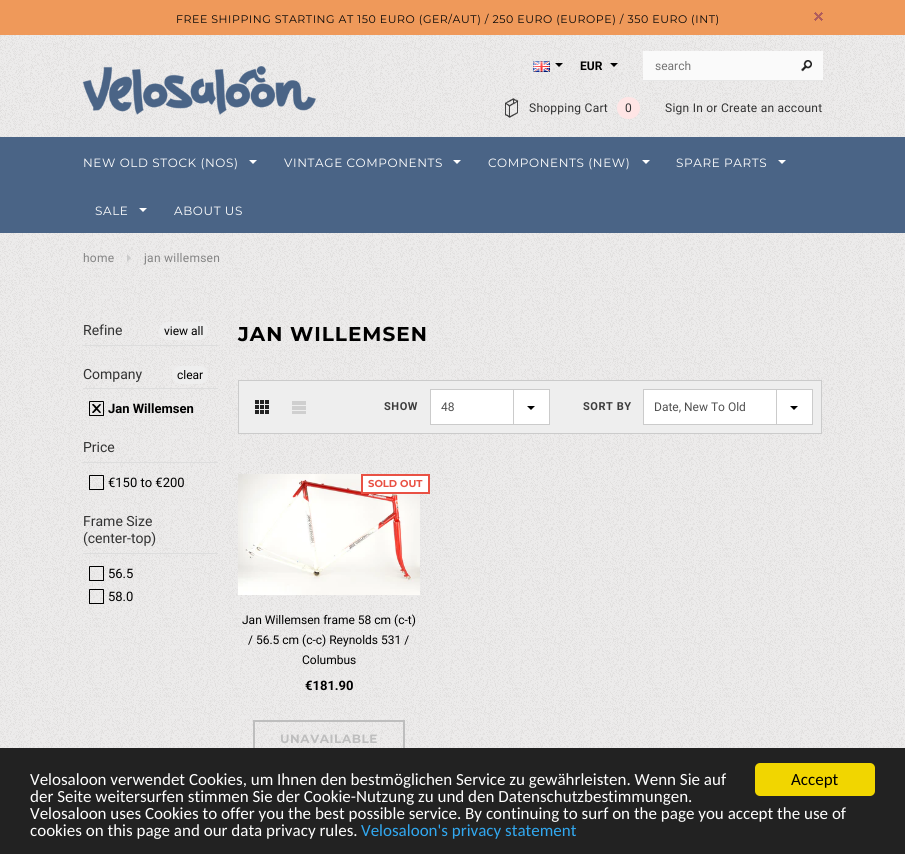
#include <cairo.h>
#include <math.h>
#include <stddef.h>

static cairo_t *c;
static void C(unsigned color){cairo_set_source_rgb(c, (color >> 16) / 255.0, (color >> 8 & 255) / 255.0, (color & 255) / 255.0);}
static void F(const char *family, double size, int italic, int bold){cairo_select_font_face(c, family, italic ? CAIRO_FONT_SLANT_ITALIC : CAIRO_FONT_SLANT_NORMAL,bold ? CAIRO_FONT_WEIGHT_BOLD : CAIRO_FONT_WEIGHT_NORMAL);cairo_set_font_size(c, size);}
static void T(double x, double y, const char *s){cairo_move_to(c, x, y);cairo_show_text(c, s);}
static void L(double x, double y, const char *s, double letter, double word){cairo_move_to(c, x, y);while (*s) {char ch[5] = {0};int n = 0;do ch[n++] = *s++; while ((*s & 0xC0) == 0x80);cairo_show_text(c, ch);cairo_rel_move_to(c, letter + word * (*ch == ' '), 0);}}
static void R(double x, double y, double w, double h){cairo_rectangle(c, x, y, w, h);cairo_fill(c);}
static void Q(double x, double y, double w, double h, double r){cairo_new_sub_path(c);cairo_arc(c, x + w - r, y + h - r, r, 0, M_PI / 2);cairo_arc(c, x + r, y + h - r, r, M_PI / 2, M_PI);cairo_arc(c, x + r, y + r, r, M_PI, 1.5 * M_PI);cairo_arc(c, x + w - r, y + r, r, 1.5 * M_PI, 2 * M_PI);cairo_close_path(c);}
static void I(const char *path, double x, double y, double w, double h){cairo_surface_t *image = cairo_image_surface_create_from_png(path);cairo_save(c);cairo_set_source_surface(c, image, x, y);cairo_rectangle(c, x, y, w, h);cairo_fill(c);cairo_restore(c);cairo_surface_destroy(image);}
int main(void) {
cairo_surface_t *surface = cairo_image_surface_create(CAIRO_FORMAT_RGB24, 905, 854);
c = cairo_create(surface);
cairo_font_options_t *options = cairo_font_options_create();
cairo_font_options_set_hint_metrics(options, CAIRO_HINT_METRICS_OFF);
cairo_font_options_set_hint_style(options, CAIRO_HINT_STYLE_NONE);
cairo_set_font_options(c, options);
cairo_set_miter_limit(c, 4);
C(0xffffff);
cairo_paint(c);
I("1.png",0,233,905,515);
C(0xef995a);
R(0,0,905,35);
F("Montserrat",11,0,0);
C(0x080808);
L(176,23,"FREE SHIPPING STARTING AT 150 EURO (GER/AUT) / 250 EURO (EUROPE) / 350 EURO (INT)",.55,0);
I("2.png",814,12,9,9);
I("3.png",0,35,905,102);
I("4.png",533,61,17,11);
C(0x000000);
cairo_new_path(c);
cairo_move_to(c,555,63);
cairo_line_to(c,563,63);
cairo_line_to(c,559,67);
cairo_close_path(c);
cairo_fill(c);
F("Roboto",12,0,1);
T(580,70,"EUR");
cairo_new_path(c);
cairo_move_to(c,610,63);
cairo_line_to(c,618,63);
cairo_line_to(c,614,67);
cairo_close_path(c);
cairo_fill(c);
C(0xfafafa);
R(643,51,180,29);
C(0xe7e7e7);
R(643,80,180,1);
F("Roboto",12,0,0);
C(0x757575);
T(655,70,"search");
I("5.png",801,60,11,12);
I("6.png",83,66,233,49);
I("7.png",505,98,13,20);
C(0x323232);
L(529,112,"Shopping Cart",.25,0);
C(0xffe5e5);
Q(617,97,23,22,11);
cairo_fill(c);
C(0x323232);
L(625,112,"0",.25,0);
L(665,112,"Sign In or Create an account",.25,0);
C(0x4a6486);
R(0,137,905,96);
F("Montserrat",12,0,0);
C(0xffffff);
L(83,167,"NEW OLD STOCK (NOS)",.6,0);
cairo_new_path(c);
cairo_move_to(c,249,160);
cairo_line_to(c,257,160);
cairo_line_to(c,253,164);
cairo_close_path(c);
cairo_fill(c);
L(284,167,"VINTAGE COMPONENTS",.6,0);
cairo_new_path(c);
cairo_move_to(c,453,160);
cairo_line_to(c,461,160);
cairo_line_to(c,457,164);
cairo_close_path(c);
cairo_fill(c);
L(488,167,"COMPONENTS (NEW)",.6,0);
cairo_new_path(c);
cairo_move_to(c,642,160);
cairo_line_to(c,650,160);
cairo_line_to(c,646,164);
cairo_close_path(c);
cairo_fill(c);
L(676,167,"SPARE PARTS",.6,0);
cairo_new_path(c);
cairo_move_to(c,778,160);
cairo_line_to(c,786,160);
cairo_line_to(c,782,164);
cairo_close_path(c);
cairo_fill(c);
L(95,215,"SALE",.6,0);
cairo_new_path(c);
cairo_move_to(c,139,208);
cairo_line_to(c,147,208);
cairo_line_to(c,143,212);
cairo_close_path(c);
cairo_fill(c);
L(174,215,"ABOUT US",.6,0);
F("Roboto",12,0,0);
C(0x848484);
L(83,262,"home",.25,0);
C(0xcbcbcb);
cairo_new_path(c);
cairo_move_to(c,127,262);
cairo_line_to(c,127,254);
cairo_line_to(c,131,258);
cairo_close_path(c);
cairo_fill(c);
C(0x848484);
L(144,262,"jan willemsen",.25,0);
C(0xdddddd);
R(83,345,135,1);
F("Roboto",14,0,0);
C(0x323232);
T(83,335,"Refine");
C(0xeeeeee);
Q(159,322,49,18,9);
cairo_fill(c);
F("Roboto",12,0,0);
C(0x000000);
T(164,335,"view all");
C(0xdddddd);
R(83,388,135,1);
F("Roboto",14,0,0);
C(0x323232);
T(83,379,"Company");
C(0xeeeeee);
Q(172,366,36,18,9);
cairo_fill(c);
F("Roboto",12,0,0);
C(0x000000);
T(177,379,"clear");
I("8.png",89,401,16,15);
F("Roboto",13,0,1);
T(108,413,"Jan Willemsen");
C(0xdddddd);
R(83,462,135,1);
F("Roboto",14,0,0);
C(0x323232);
T(83,452,"Price");
I("9.png",89,475,16,15);
F("Roboto",13,0,0);
C(0x000000);
T(108,487,"€150 to €200");
C(0xdddddd);
R(83,553,135,1);
F("Roboto",14,0,0);
C(0x323232);
T(83,526,"Frame Size");
T(83,543,"(center-top)");
I("10.png",89,566,16,15);
F("Roboto",13,0,0);
C(0x000000);
T(108,578,"56.5");
I("11.png",89,589,16,15);
T(108,601,"58.0");
F("Montserrat",20,0,1);
L(238,341,"JAN WILLEMSEN",1,0);
C(0xeeeeee);
cairo_rectangle(c,238.5,380.5,583,53);
cairo_fill_preserve(c);
C(0xcbcbcb);
cairo_set_line_width(c,1);
cairo_stroke(c);
I("12.png",255,400,14,14);
I("13.png",292,401,14,13);
F("Roboto",11,0,1);
C(0x3c3c3c);
L(384,410,"SHOW",.55,0);
C(0xffffff);
cairo_rectangle(c,430.5,389.5,119,35);
cairo_fill_preserve(c);
C(0xcbcbcb);
cairo_stroke(c);
F("Roboto",12,0,0);
C(0x505050);
T(441,411,"48");
C(0xcbcbcb);
R(513,390,1,34);
C(0x000000);
cairo_new_path(c);
cairo_move_to(c,527,406);
cairo_line_to(c,535,406);
cairo_line_to(c,531,410);
cairo_close_path(c);
cairo_fill(c);
F("Roboto",11,0,1);
C(0x3c3c3c);
L(583,410,"SORT BY",.55,0);
C(0xffffff);
cairo_rectangle(c,643.5,389.5,169,35);
cairo_fill_preserve(c);
C(0xcbcbcb);
cairo_stroke(c);
F("Roboto",12,0,0);
C(0x505050);
T(654,411,"Date, New To Old");
C(0xcbcbcb);
R(776,390,1,34);
C(0x000000);
cairo_new_path(c);
cairo_move_to(c,790,406);
cairo_line_to(c,798,406);
cairo_line_to(c,794,410);
cairo_close_path(c);
cairo_fill(c);
I("14.png",238,474,182,121);
C(0xffffff);
cairo_rectangle(c,362,475,67,18);
cairo_fill_preserve(c);
C(0xe95144);
cairo_set_line_width(c,2);
cairo_stroke(c);
F("Montserrat",10,0,1);
T(368,487,"SOLD OUT");
cairo_rectangle(c,254,721,150,34);
C(0xbebebe);
cairo_stroke(c);
F("Montserrat",12,0,1);
L(280,743,"UNAVAILABLE",.6,0);
F("Roboto",12,0,0);
C(0x000000);
T(242,624,"Jan Willemsen frame 58 cm (c-t)");
T(248,644,"/ 56.5 cm (c-c) Reynolds 531 /");
T(302,664,"Columbus");
F("Roboto",13,0,1);
T(305,690,"€181.90");
C(0x222222);
R(0,748,905,106);
F("Carlito",17,0,0);
C(0xffffff);
T(30,785,"Velosaloon verwendet Cookies, um Ihnen den bestmöglichen Service zu gewährleisten. Wenn Sie auf");
T(30,802,"der Seite weitersurfen stimmen Sie der Cookie-Nutzung zu und den Datenschutzbestimmungen.");
T(30,819,"Velosaloon uses Cookies to offer you the best possible service. By continuing to surf on the page you accept the use of");
T(30,836,"cookies on this page and our data privacy rules.");
C(0x31a8f0);
T(361,836,"Velosaloon's privacy statement");
C(0xf1d600);
Q(755,763,120,33,5);
cairo_fill(c);
C(0x000000);
T(791,785,"Accept");
cairo_surface_write_to_png(surface, "o.png");
cairo_font_options_destroy(options);
cairo_destroy(c);
cairo_surface_destroy(surface);
return 0;
}
